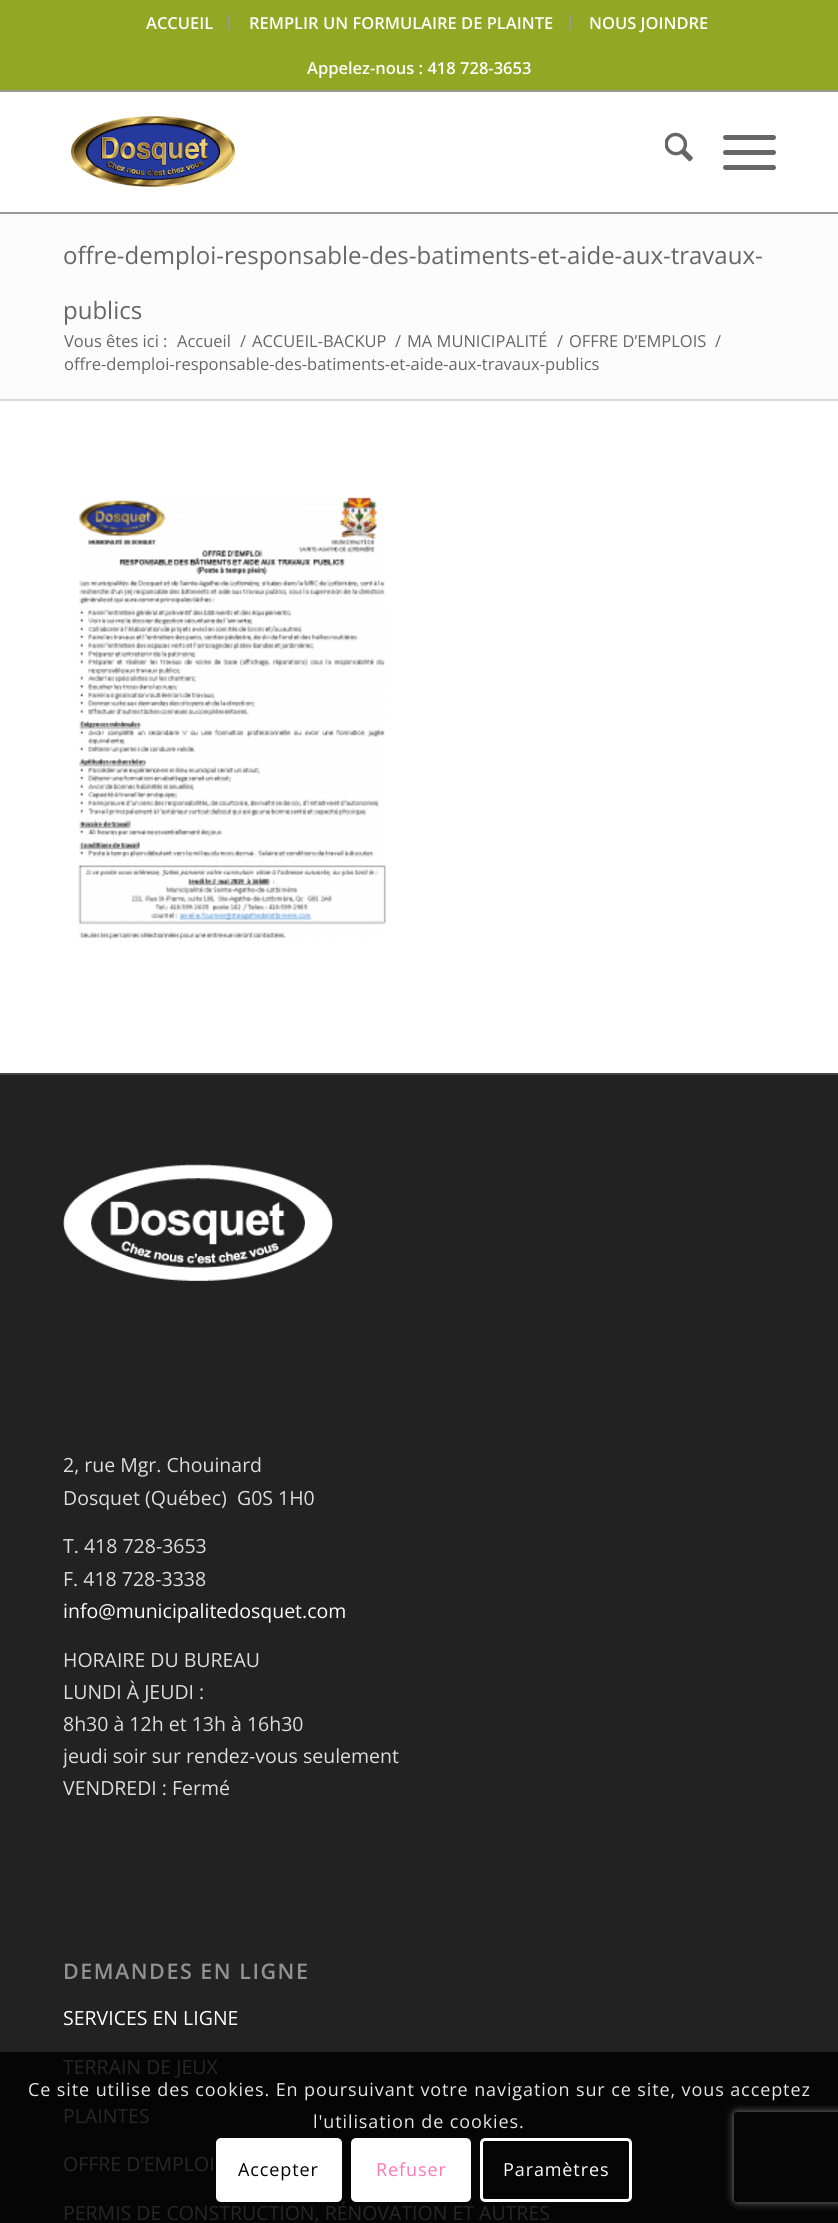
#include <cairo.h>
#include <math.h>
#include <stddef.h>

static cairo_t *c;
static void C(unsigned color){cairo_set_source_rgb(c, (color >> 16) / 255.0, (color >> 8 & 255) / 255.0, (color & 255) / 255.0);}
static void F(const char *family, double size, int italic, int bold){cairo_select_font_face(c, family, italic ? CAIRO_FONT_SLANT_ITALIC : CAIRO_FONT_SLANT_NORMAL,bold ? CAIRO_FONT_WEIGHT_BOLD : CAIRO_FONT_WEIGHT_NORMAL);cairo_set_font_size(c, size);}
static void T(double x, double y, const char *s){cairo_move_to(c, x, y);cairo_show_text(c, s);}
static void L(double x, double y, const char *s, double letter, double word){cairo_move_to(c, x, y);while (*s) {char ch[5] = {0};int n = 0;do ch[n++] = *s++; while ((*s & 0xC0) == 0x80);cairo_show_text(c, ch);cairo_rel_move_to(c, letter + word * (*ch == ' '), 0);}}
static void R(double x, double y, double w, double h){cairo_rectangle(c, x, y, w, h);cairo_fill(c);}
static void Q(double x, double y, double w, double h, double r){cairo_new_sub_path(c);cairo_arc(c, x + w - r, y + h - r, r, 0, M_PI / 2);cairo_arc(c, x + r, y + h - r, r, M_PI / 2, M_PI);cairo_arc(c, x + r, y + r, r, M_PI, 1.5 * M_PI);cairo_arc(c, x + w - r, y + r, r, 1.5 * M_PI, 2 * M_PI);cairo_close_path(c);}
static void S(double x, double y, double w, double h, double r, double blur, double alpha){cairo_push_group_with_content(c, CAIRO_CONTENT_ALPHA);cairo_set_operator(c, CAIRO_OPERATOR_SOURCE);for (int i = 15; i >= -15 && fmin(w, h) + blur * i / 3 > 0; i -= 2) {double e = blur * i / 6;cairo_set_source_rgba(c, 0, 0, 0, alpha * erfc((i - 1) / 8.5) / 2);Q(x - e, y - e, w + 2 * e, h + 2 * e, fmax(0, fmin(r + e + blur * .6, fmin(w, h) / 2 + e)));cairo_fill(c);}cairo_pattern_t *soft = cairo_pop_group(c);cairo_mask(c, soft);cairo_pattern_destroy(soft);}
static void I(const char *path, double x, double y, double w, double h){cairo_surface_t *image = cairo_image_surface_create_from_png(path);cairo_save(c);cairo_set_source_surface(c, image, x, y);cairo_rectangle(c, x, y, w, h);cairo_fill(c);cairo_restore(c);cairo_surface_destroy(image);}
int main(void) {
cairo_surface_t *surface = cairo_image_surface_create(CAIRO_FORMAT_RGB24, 838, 2223);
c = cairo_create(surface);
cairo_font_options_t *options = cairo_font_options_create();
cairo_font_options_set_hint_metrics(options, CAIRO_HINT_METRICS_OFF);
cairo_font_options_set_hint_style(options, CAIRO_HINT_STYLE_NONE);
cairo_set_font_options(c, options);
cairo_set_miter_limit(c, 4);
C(0xffffff);
cairo_paint(c);
C(0x92a824);
R(0,0,838,90);
C(0x999999);
R(0,90,838,2);
R(228,15,2,15);
F("Open Sans SemiBold",16.5,0,0);
C(0xffffff);
T(146,29,"ACCUEIL");
C(0x999999);
R(569,15,2,15);
C(0xffffff);
T(249,29,"REMPLIR UN FORMULAIRE DE PLAINTE");
T(589,29,"NOUS JOINDRE");
T(307,74,"Appelez-nous : 418 728-3653");
C(0x999999);
R(0,212,838,2);
I("1.png",71,116,164,71);
I("2.png",665,132,28,30);
C(0x666666);
Q(723,150,53,5,2.5);
cairo_fill(c);
Q(723,135,53,5,2.5);
cairo_fill(c);
Q(723,165,53,5,2.5);
cairo_fill(c);
C(0xfcfcfc);
R(0,214,838,185);
F("Open Sans",24,0,0);
C(0x666666);
T(63,264,"offre-demploi-responsable-des-batiments-et-aide-aux-travaux-");
T(63,319,"publics");
F("Open Sans",16.5,0,0);
T(64,347,"Vous êtes ici :");
T(177,347,"Accueil");
T(240,347,"/");
T(252,347,"ACCUEIL-BACKUP");
T(395,347,"/");
T(407,347,"MA MUNICIPALITÉ");
T(557,347,"/");
T(569,347,"OFFRE D’EMPLOIS");
T(715,347,"/");
T(64,370,"offre-demploi-responsable-des-batiments-et-aide-aux-travaux-publics");
C(0xd9d9d9);
R(0,399,838,2);
I("3.png",78,497,308,443);
C(0x222222);
R(0,1075,838,977);
C(0x050505);
R(0,2052,838,171);
C(0x444444);
R(0,1073,838,2);
I("4.png",63,1164,270,117);
F("Open Sans",19.5,0,0);
C(0xdddddd);
T(63,1472,"2, rue Mgr. Chouinard");
T(63,1505,"Dosquet (Québec)  G0S 1H0");
T(63,1553,"T. 418 728-3653");
T(63,1586,"F. 418 728-3338");
C(0xffffff);
T(63,1618,"info@municipalitedosquet.com");
C(0xdddddd);
T(63,1667,"HORAIRE DU BUREAU");
T(63,1699,"LUNDI À JEUDI :");
T(63,1731,"8h30 à 12h et 13h à 16h30");
cairo_save(c);
cairo_rectangle(c,63,1434,713,387);
cairo_clip(c);
T(63,1763,"jeudi soir sur rendez-vous seulement");
cairo_restore(c);
T(63,1795,"VENDREDI : Fermé");
F("Open Sans SemiBold",21.5,0,0);
C(0x919191);
L(63,1979,"DEMANDES EN LIGNE",1.5,0);
F("Open Sans",19.5,0,0);
C(0xffffff);
T(63,2025,"SERVICES EN LIGNE");
C(0x262626);
T(63,2074,"TERRAIN DE JEUX");
T(63,2123,"PLAINTES");
T(63,2171,"OFFRE D’EMPLOI");
T(63,2220,"PERMIS DE CONSTRUCTION, RÉNOVATION ET AUTRES");
F("Open Sans",18,0,0);
C(0xe6e6e6);
L(28,2096,"Ce site utilise des cookies. En poursuivant votre navigation sur ce site, vous acceptez",.9,0);
L(313,2128,"l'utilisation de cookies.",.9,0);
C(0xffffff);
Q(216,2138,126,64,5);
cairo_fill(c);
C(0x000000);
L(238,2176,"Accepter",.9,0);
C(0xffffff);
Q(352.5,2139.5,117,61,3.5);
cairo_fill_preserve(c);
cairo_set_line_width(c,3);
cairo_stroke(c);
C(0xff75b5);
L(376,2176,"Refuser",.9,0);
Q(481.5,2139.5,149,61,3.5);
C(0xffffff);
cairo_stroke(c);
L(503,2176,"Paramètres",.9,0);
cairo_save(c);
cairo_set_fill_rule(c,CAIRO_FILL_RULE_EVEN_ODD);
cairo_new_path(c);
cairo_move_to(c,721,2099);
cairo_line_to(c,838,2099);
cairo_line_to(c,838,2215);
cairo_line_to(c,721,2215);
cairo_close_path(c);
cairo_move_to(c,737,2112);
cairo_line_to(c,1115,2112);
cairo_curve_to(c,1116.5,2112,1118,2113.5,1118,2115);
cairo_line_to(c,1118,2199);
cairo_curve_to(c,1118,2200.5,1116.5,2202,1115,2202);
cairo_line_to(c,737,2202);
cairo_curve_to(c,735.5,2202,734,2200.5,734,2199);
cairo_line_to(c,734,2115);
cairo_curve_to(c,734,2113.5,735.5,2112,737,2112);
cairo_close_path(c);
cairo_clip(c);
C(0x808080);
S(734,2112,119,90,3,4,1);
cairo_restore(c);
cairo_surface_write_to_png(surface, "o.png");
cairo_font_options_destroy(options);
cairo_destroy(c);
cairo_surface_destroy(surface);
return 0;
}
